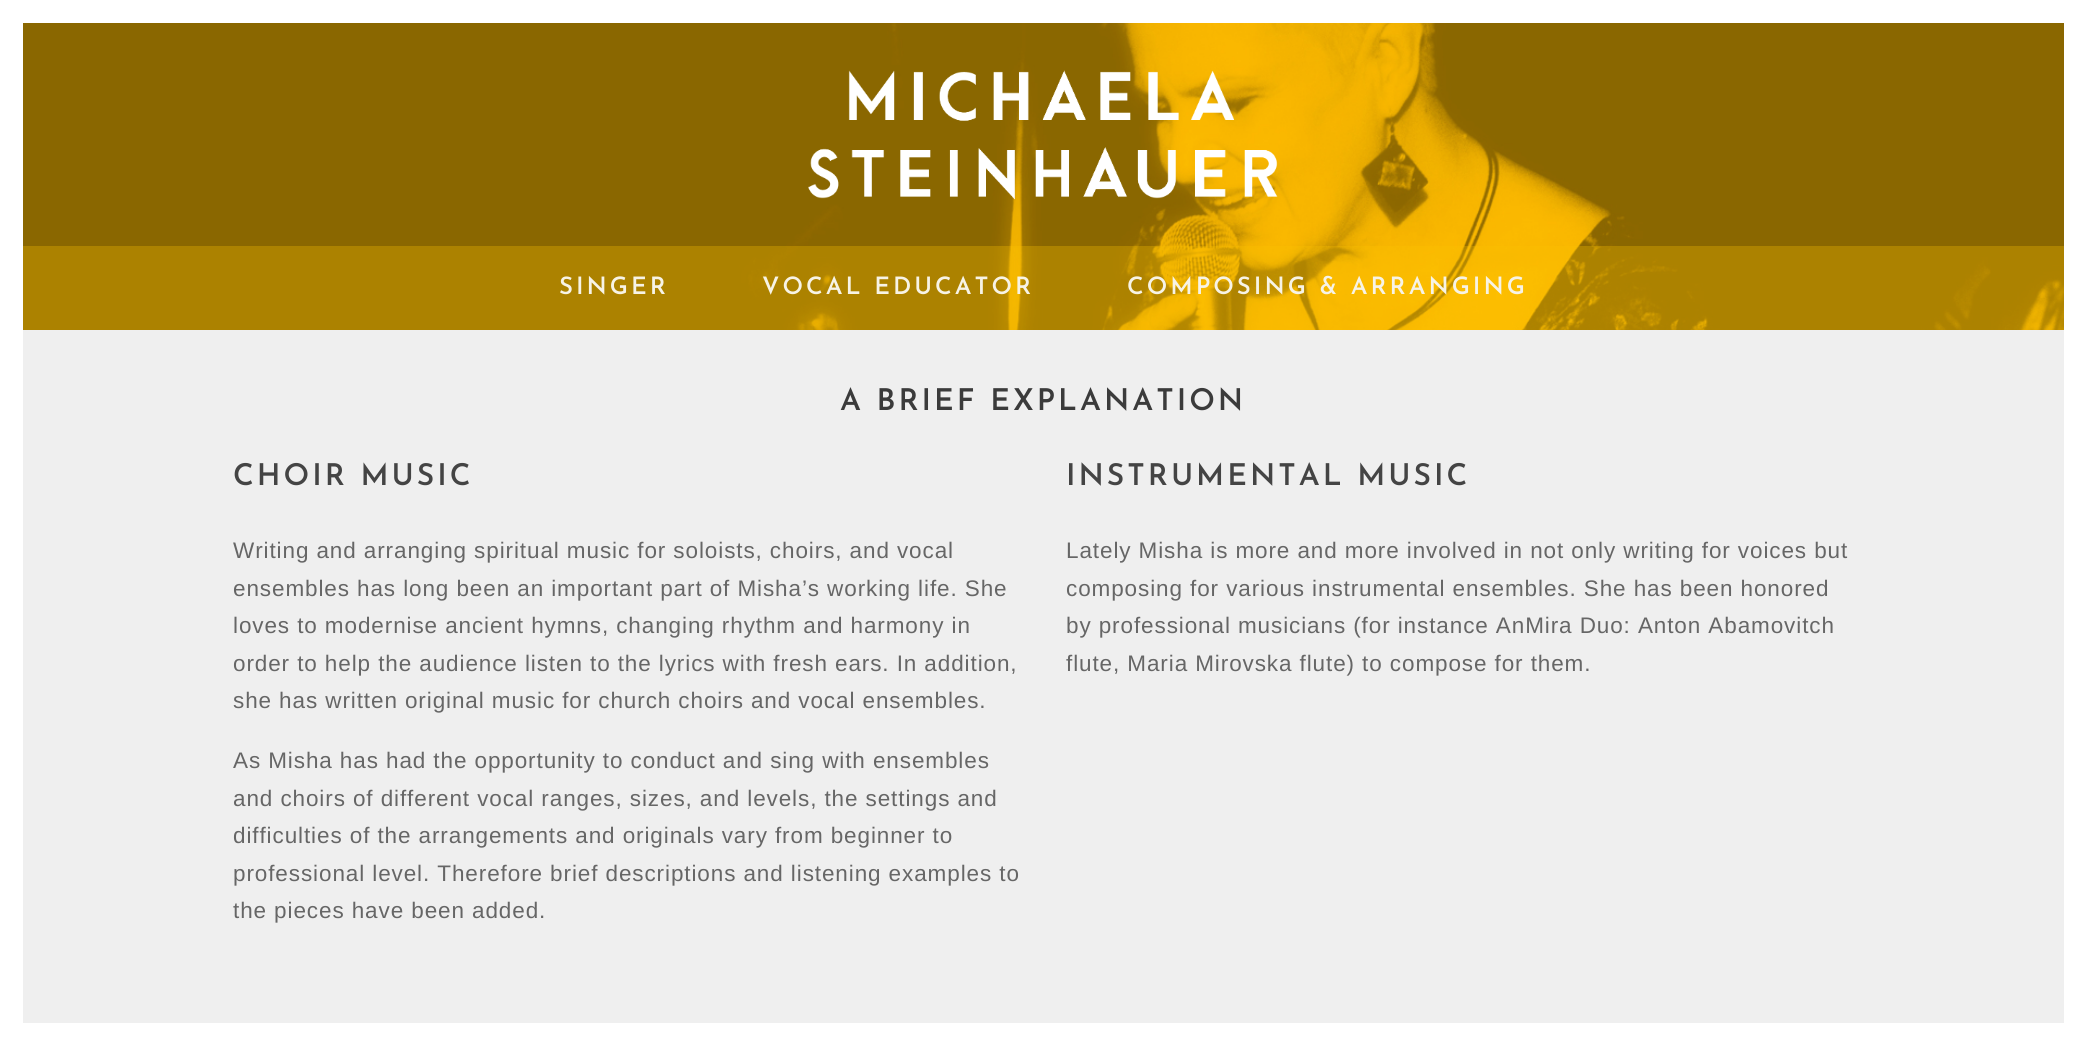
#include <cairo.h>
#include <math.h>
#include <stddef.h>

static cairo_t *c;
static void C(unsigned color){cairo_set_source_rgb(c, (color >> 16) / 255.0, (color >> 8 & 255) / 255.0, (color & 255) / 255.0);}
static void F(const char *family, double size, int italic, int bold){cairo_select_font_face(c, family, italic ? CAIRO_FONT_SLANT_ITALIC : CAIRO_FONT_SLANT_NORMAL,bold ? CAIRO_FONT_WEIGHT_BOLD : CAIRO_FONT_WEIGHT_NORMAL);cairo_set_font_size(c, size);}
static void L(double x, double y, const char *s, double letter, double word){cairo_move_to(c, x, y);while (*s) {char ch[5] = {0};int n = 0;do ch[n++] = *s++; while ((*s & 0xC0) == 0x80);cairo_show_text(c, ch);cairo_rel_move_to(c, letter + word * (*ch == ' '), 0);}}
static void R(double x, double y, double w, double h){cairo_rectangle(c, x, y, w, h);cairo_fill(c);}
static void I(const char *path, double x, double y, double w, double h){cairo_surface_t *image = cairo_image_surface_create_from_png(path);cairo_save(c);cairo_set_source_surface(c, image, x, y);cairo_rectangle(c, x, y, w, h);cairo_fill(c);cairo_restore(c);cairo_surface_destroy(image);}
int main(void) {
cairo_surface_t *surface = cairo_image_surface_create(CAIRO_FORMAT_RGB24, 2086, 1045);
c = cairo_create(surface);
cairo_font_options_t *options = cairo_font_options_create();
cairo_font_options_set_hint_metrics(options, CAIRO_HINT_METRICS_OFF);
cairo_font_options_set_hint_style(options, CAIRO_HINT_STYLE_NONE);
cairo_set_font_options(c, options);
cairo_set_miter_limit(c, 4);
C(0xefefef);
cairo_paint(c);
C(0xffffff);
R(0,0,23,1045);
R(23,0,2041,23);
R(2064,0,22,1023);
I("1.png",23,23,2041,307);
I("2.png",808,70,470,130);
cairo_set_source_rgba(c,0.98,0.757,0,0.3);
R(23,246,2041,84);
F("Josefin Sans Thin",24,0,0);
C(0xf7f3e6);
L(559,294,"SINGER",3,0);
L(762,294,"VOCAL EDUCATOR",3,0);
L(1127,294,"COMPOSING & ARRANGING",3,0);
F("Josefin Sans Thin",30,0,0);
C(0x3b3b3b);
L(840,410,"A BRIEF EXPLANATION",3,0);
C(0x444444);
L(233,485,"CHOIR MUSIC",3,0);
F("Liberation Sans",22.5,0,0);
C(0x666666);
L(233,558,"Writing and arranging spiritual music for soloists, choirs, and vocal",.9,0);
L(233,596,"ensembles has long been an important part of Misha’s working life. She",.9,0);
L(233,633,"loves to modernise ancient hymns, changing rhythm and harmony in",.9,0);
L(233,671,"order to help the audience listen to the lyrics with fresh ears. In addition,",.9,0);
L(233,708,"she has written original music for church choirs and vocal ensembles.",.9,0);
L(233,768,"As Misha has had the opportunity to conduct and sing with ensembles",.9,0);
L(233,806,"and choirs of different vocal ranges, sizes, and levels, the settings and",.9,0);
L(233,843,"difficulties of the arrangements and originals vary from beginner to",.9,0);
L(233,881,"professional level. Therefore brief descriptions and listening examples to",.9,0);
L(233,918,"the pieces have been added.",.9,0);
F("Josefin Sans Thin",30,0,0);
C(0x444444);
L(1066,485,"INSTRUMENTAL MUSIC",3,0);
F("Liberation Sans",22.5,0,0);
C(0x666666);
L(1066,558,"Lately Misha is more and more involved in not only writing for voices but",.9,0);
L(1066,596,"composing for various instrumental ensembles. She has been honored",.9,0);
L(1066,633,"by professional musicians (for instance AnMira Duo: Anton Abamovitch",.9,0);
L(1066,671,"flute, Maria Mirovska flute) to compose for them.",.9,0);
C(0xffffff);
R(23,1023,2063,22);
cairo_surface_write_to_png(surface, "o.png");
cairo_font_options_destroy(options);
cairo_destroy(c);
cairo_surface_destroy(surface);
return 0;
}
